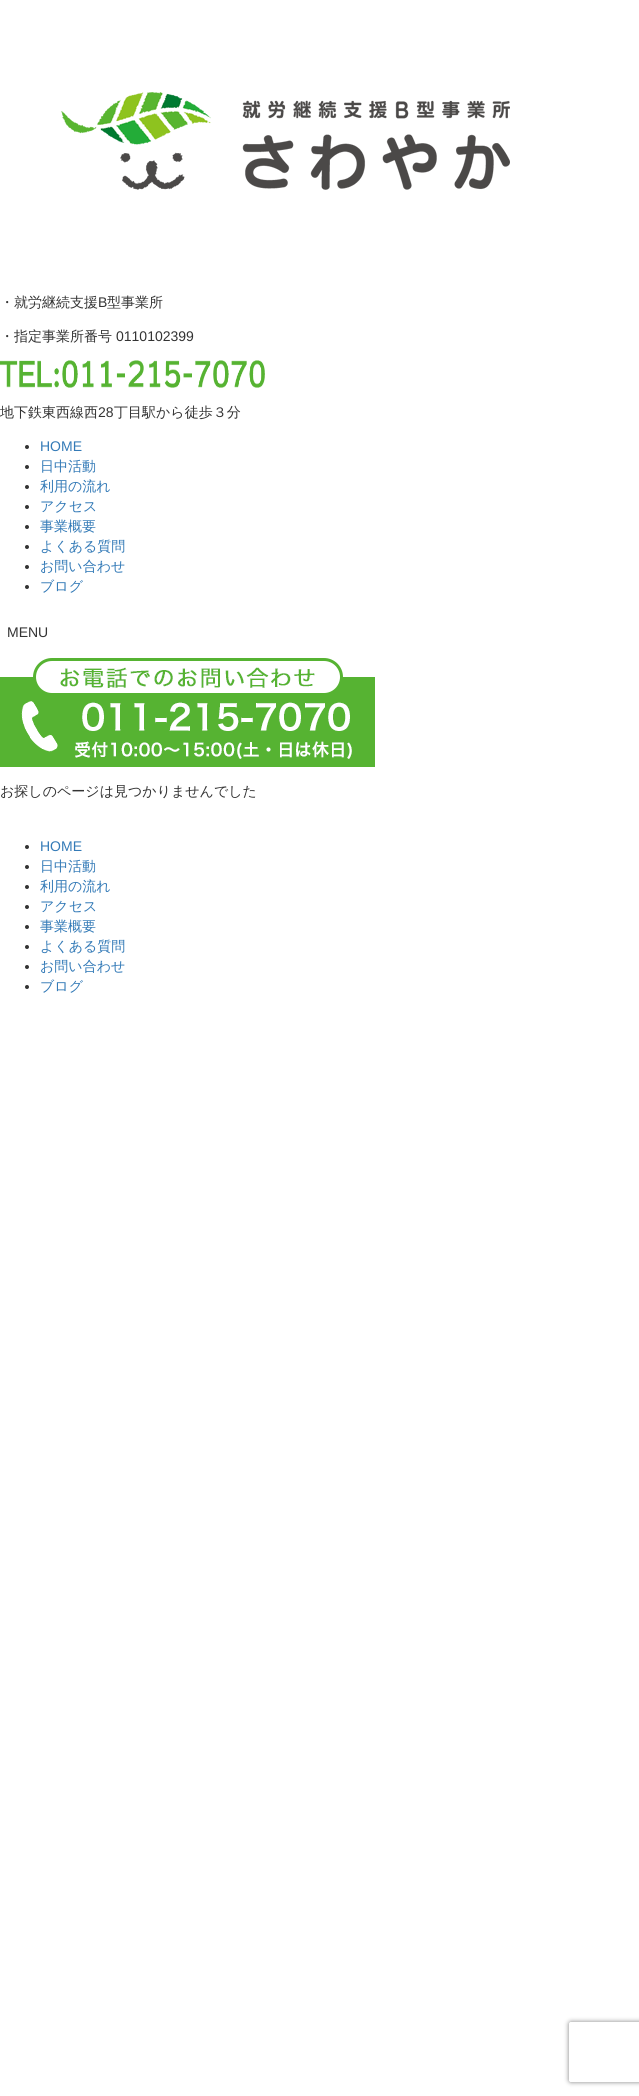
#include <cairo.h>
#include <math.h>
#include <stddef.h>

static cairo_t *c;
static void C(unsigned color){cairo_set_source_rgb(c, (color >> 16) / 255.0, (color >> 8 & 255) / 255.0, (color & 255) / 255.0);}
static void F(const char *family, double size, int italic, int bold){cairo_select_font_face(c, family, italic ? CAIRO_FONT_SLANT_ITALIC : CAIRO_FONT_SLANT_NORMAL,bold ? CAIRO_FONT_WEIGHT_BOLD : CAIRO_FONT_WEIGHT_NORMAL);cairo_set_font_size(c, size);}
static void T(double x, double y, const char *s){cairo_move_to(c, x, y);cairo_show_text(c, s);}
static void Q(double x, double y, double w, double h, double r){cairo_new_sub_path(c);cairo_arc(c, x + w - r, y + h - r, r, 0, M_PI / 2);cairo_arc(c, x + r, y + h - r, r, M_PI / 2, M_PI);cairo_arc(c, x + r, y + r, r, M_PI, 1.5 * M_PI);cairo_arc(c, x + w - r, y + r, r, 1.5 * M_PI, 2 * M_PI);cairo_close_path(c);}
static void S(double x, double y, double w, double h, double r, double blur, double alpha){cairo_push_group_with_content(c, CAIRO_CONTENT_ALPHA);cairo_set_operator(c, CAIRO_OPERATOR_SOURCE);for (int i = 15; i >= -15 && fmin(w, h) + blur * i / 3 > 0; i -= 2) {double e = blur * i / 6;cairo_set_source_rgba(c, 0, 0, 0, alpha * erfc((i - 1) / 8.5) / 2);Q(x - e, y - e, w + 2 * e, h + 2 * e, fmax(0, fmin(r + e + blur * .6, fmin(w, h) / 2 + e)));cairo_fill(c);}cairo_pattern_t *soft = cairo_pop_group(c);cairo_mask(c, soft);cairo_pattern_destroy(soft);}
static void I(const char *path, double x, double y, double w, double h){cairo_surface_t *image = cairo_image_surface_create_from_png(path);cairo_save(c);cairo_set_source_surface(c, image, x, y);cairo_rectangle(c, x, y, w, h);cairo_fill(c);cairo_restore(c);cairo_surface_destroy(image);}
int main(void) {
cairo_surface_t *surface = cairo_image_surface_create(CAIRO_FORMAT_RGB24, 639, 2096);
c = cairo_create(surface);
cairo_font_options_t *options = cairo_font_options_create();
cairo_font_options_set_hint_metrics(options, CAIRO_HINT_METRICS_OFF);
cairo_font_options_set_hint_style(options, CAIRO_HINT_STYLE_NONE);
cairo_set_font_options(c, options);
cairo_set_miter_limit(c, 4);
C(0xffffff);
cairo_paint(c);
I("1.png",61,92,449,98);
F("WenQuanYi Zen Hei Medium",14,0,0);
C(0x333333);
T(0,307,"・就労継続支援");
F("Liberation Sans",14,0,0);
T(98,307,"B");
F("WenQuanYi Zen Hei Medium",14,0,0);
T(107,307,"型事業所");
T(0,341,"・指定事業所番号");
F("Liberation Sans",14,0,0);
T(116,341,"0110102399");
I("2.png",0,360,265,28);
F("WenQuanYi Zen Hei Medium",14,0,0);
T(0,417,"地下鉄東西線西");
F("Liberation Sans",14,0,0);
T(98,417,"28");
F("WenQuanYi Zen Hei Medium",14,0,0);
T(114,417,"丁目駅から徒歩３分");
cairo_new_path(c);
cairo_arc(c,27,447,2,0,2 * M_PI);
cairo_fill(c);
F("Liberation Sans",14,0,0);
C(0x337ab7);
T(40,451,"HOME");
C(0x333333);
cairo_new_path(c);
cairo_arc(c,27,467,2,0,2 * M_PI);
cairo_fill(c);
F("WenQuanYi Zen Hei Medium",14,0,0);
C(0x337ab7);
T(40,471,"日中活動");
C(0x333333);
cairo_new_path(c);
cairo_arc(c,27,487,2,0,2 * M_PI);
cairo_fill(c);
C(0x337ab7);
T(40,491,"利用の流れ");
C(0x333333);
cairo_new_path(c);
cairo_arc(c,27,507,2,0,2 * M_PI);
cairo_fill(c);
C(0x337ab7);
T(40,511,"アクセス");
C(0x333333);
cairo_new_path(c);
cairo_arc(c,27,527,2,0,2 * M_PI);
cairo_fill(c);
C(0x337ab7);
T(40,531,"事業概要");
C(0x333333);
cairo_new_path(c);
cairo_arc(c,27,547,2,0,2 * M_PI);
cairo_fill(c);
C(0x337ab7);
T(40,551,"よくある質問");
C(0x333333);
cairo_new_path(c);
cairo_arc(c,27,567,2,0,2 * M_PI);
cairo_fill(c);
C(0x337ab7);
T(40,571,"お問い合わせ");
C(0x333333);
cairo_new_path(c);
cairo_arc(c,27,587,2,0,2 * M_PI);
cairo_fill(c);
C(0x337ab7);
T(40,591,"ブログ");
F("Liberation Sans",14,0,0);
C(0x333333);
T(7,637,"MENU");
I("3.png",0,658,375,109);
F("WenQuanYi Zen Hei Medium",14,0,0);
T(0,796,"お探しのページは見つかりませんでした");
cairo_new_path(c);
cairo_arc(c,27,847,2,0,2 * M_PI);
cairo_fill(c);
F("Liberation Sans",14,0,0);
C(0x337ab7);
T(40,851,"HOME");
C(0x333333);
cairo_new_path(c);
cairo_arc(c,27,867,2,0,2 * M_PI);
cairo_fill(c);
F("WenQuanYi Zen Hei Medium",14,0,0);
C(0x337ab7);
T(40,871,"日中活動");
C(0x333333);
cairo_new_path(c);
cairo_arc(c,27,887,2,0,2 * M_PI);
cairo_fill(c);
C(0x337ab7);
T(40,891,"利用の流れ");
C(0x333333);
cairo_new_path(c);
cairo_arc(c,27,907,2,0,2 * M_PI);
cairo_fill(c);
C(0x337ab7);
T(40,911,"アクセス");
C(0x333333);
cairo_new_path(c);
cairo_arc(c,27,927,2,0,2 * M_PI);
cairo_fill(c);
C(0x337ab7);
T(40,931,"事業概要");
C(0x333333);
cairo_new_path(c);
cairo_arc(c,27,947,2,0,2 * M_PI);
cairo_fill(c);
C(0x337ab7);
T(40,951,"よくある質問");
C(0x333333);
cairo_new_path(c);
cairo_arc(c,27,967,2,0,2 * M_PI);
cairo_fill(c);
C(0x337ab7);
T(40,971,"お問い合わせ");
C(0x333333);
cairo_new_path(c);
cairo_arc(c,27,987,2,0,2 * M_PI);
cairo_fill(c);
C(0x337ab7);
T(40,991,"ブログ");
cairo_save(c);
cairo_set_fill_rule(c,CAIRO_FILL_RULE_EVEN_ODD);
cairo_new_path(c);
cairo_move_to(c,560,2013);
cairo_line_to(c,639,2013);
cairo_line_to(c,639,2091);
cairo_line_to(c,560,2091);
cairo_close_path(c);
cairo_move_to(c,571,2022);
cairo_line_to(c,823,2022);
cairo_curve_to(c,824,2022,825,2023,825,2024);
cairo_line_to(c,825,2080);
cairo_curve_to(c,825,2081,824,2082,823,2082);
cairo_line_to(c,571,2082);
cairo_curve_to(c,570,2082,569,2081,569,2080);
cairo_line_to(c,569,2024);
cairo_curve_to(c,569,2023,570,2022,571,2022);
cairo_close_path(c);
cairo_clip(c);
C(0x808080);
S(569,2022,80,60,2,2.5,1);
cairo_restore(c);
cairo_surface_write_to_png(surface, "o.png");
cairo_font_options_destroy(options);
cairo_destroy(c);
cairo_surface_destroy(surface);
return 0;
}
